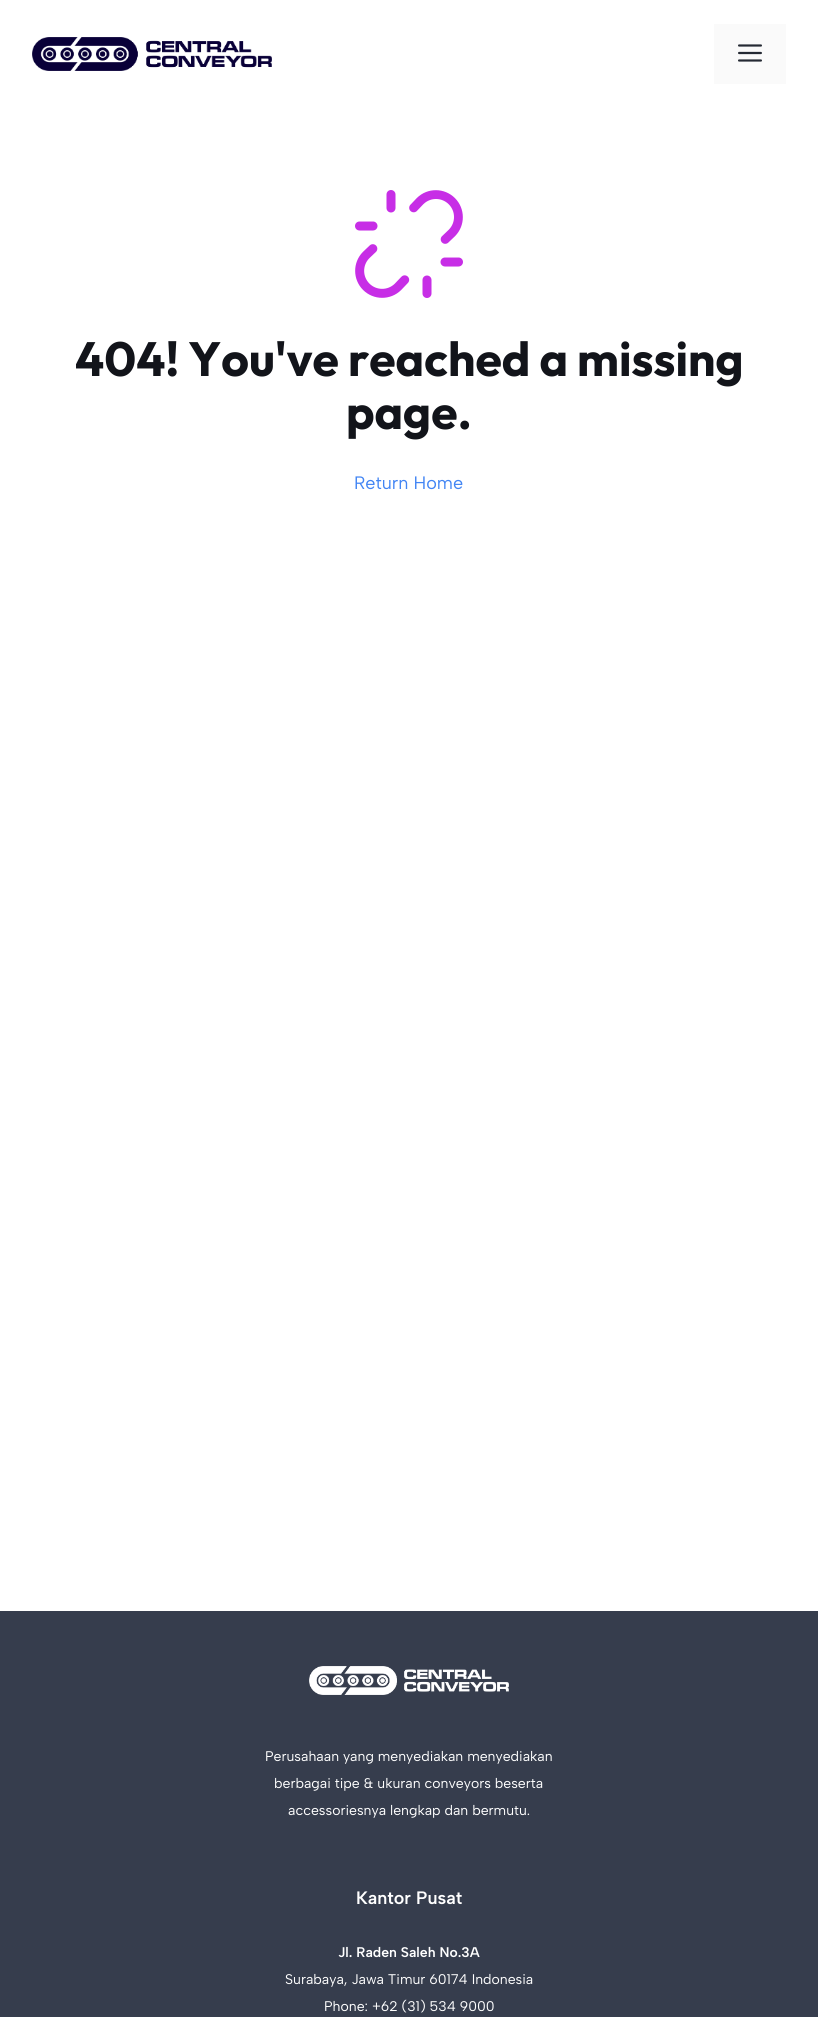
#include <cairo.h>
#include <math.h>
#include <stddef.h>

static cairo_t *c;
static void C(unsigned color){cairo_set_source_rgb(c, (color >> 16) / 255.0, (color >> 8 & 255) / 255.0, (color & 255) / 255.0);}
static void F(const char *family, double size, int italic, int bold){cairo_select_font_face(c, family, italic ? CAIRO_FONT_SLANT_ITALIC : CAIRO_FONT_SLANT_NORMAL,bold ? CAIRO_FONT_WEIGHT_BOLD : CAIRO_FONT_WEIGHT_NORMAL);cairo_set_font_size(c, size);}
static void T(double x, double y, const char *s){cairo_move_to(c, x, y);cairo_show_text(c, s);}
static void R(double x, double y, double w, double h){cairo_rectangle(c, x, y, w, h);cairo_fill(c);}
static void I(const char *path, double x, double y, double w, double h){cairo_surface_t *image = cairo_image_surface_create_from_png(path);cairo_save(c);cairo_set_source_surface(c, image, x, y);cairo_rectangle(c, x, y, w, h);cairo_fill(c);cairo_restore(c);cairo_surface_destroy(image);}
int main(void) {
cairo_surface_t *surface = cairo_image_surface_create(CAIRO_FORMAT_RGB24, 818, 2017);
c = cairo_create(surface);
cairo_font_options_t *options = cairo_font_options_create();
cairo_font_options_set_hint_metrics(options, CAIRO_HINT_METRICS_OFF);
cairo_font_options_set_hint_style(options, CAIRO_HINT_STYLE_NONE);
cairo_set_font_options(c, options);
cairo_set_miter_limit(c, 4);
C(0xffffff);
cairo_paint(c);
I("1.png",32,37,240,34);
C(0xfafafa);
R(714,24,72,60);
I("2.png",738,44,24,18);
I("3.png",355,190,108,108);
F("Outfit Thin",48,0,0);
C(0x12141a);
T(75,376,"404! You've reached a missing");
T(346,429,"page.");
F("Albert Sans",18,0,0);
C(0x4285f4);
T(354,489,"Return Home");
C(0x363d4d);
R(0,1611,818,406);
I("4.png",309,1666,200,29);
F("Albert Sans",14,0,0);
C(0xffffff);
T(265,1761,"Perusahaan yang menyediakan menyediakan");
T(274,1788,"berbagai tipe & ukuran conveyors beserta");
T(288,1815,"accessoriesnya lengkap dan bermutu.");
F("Albert Sans SemiBold",18,0,0);
T(356,1904,"Kantor Pusat");
F("Albert Sans SemiBold",14,0,0);
T(338,1957,"Jl. Raden Saleh No.3A");
F("Albert Sans",14,0,0);
T(285,1984,"Surabaya, Jawa Timur 60174 Indonesia");
T(324,2011,"Phone: +62 (31) 534 9000");
cairo_surface_write_to_png(surface, "o.png");
cairo_font_options_destroy(options);
cairo_destroy(c);
cairo_surface_destroy(surface);
return 0;
}
